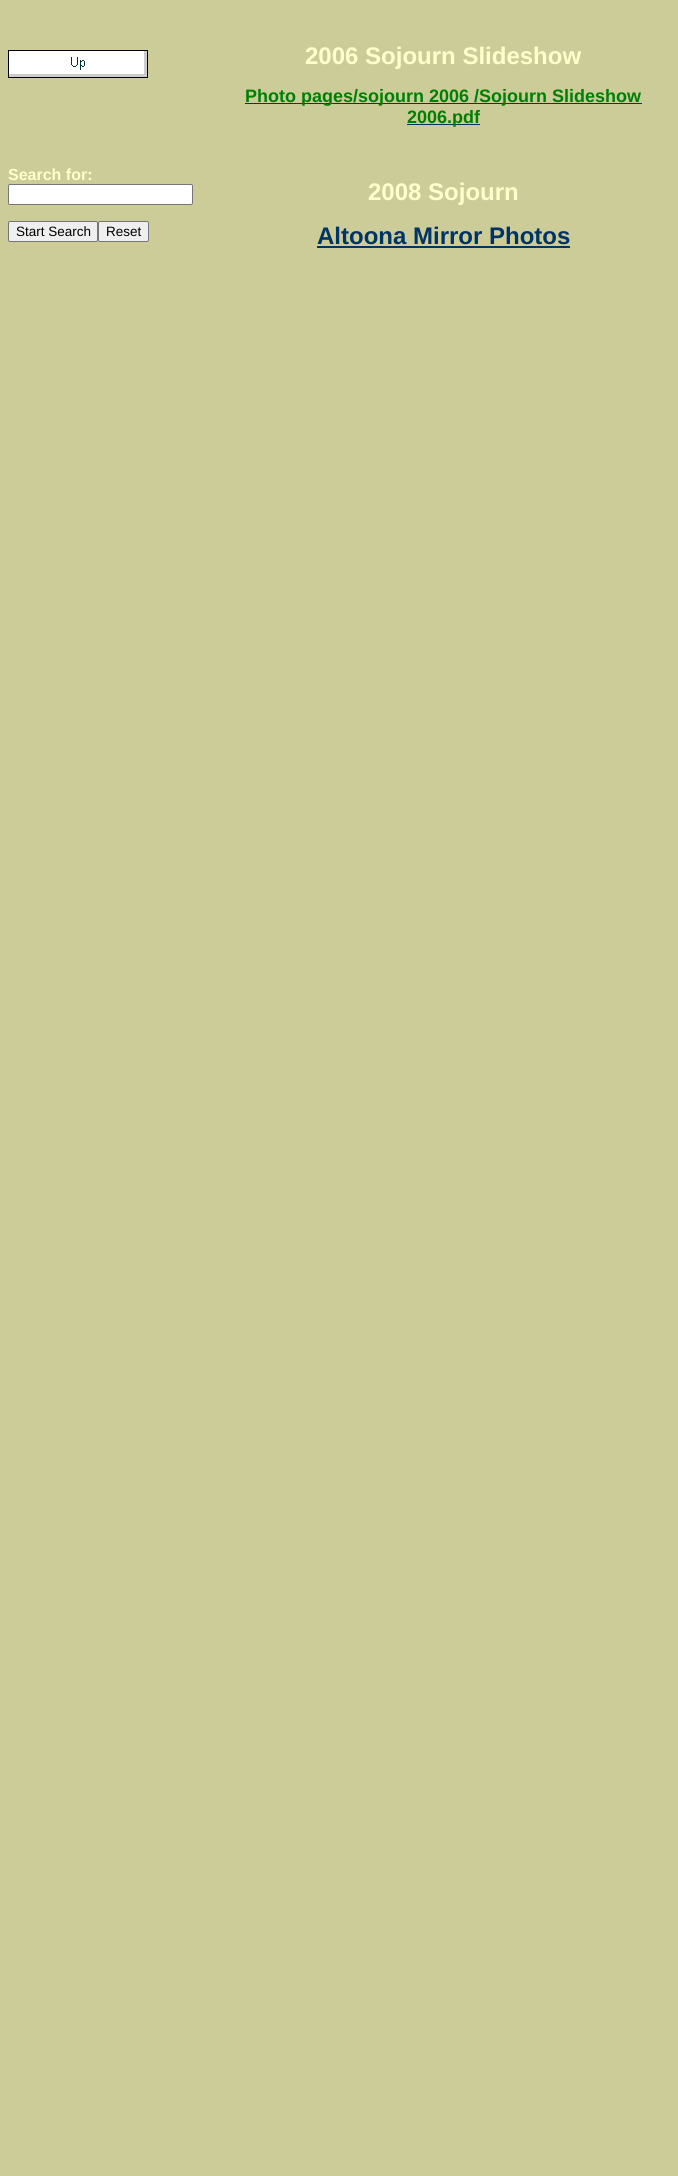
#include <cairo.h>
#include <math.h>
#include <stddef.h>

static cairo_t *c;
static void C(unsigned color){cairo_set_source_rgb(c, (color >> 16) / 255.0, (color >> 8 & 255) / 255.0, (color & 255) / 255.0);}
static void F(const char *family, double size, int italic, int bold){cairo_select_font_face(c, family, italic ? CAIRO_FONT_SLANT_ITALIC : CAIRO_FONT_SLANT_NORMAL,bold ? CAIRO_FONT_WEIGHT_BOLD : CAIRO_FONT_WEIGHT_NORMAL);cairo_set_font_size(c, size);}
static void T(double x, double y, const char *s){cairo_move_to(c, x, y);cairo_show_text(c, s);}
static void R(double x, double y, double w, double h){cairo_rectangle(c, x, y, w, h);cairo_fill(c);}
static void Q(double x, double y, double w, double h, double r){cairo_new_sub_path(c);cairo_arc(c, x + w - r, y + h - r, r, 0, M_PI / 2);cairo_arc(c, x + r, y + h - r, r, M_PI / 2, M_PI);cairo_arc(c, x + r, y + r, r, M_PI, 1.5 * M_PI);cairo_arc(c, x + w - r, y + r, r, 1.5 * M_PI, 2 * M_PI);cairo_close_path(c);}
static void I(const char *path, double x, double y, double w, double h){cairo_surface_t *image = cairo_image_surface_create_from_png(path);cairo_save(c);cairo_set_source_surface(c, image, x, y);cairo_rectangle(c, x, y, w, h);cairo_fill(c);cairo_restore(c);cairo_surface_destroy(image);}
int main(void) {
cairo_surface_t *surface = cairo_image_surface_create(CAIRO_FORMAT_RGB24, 678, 2176);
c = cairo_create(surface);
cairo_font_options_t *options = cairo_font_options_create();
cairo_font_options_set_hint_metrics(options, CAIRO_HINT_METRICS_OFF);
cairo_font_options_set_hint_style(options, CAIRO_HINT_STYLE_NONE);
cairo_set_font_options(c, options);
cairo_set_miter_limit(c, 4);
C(0xcccc99);
cairo_paint(c);
I("1.png",8,50,140,28);
F("Liberation Sans",16,0,1);
C(0xffffcc);
T(8,180,"Search for:");
C(0xffffff);
Q(8.5,184.5,184,20,1.5);
cairo_fill_preserve(c);
C(0x767676);
cairo_set_line_width(c,1);
cairo_stroke(c);
C(0xefefef);
Q(8.5,221.5,89,20,1.5);
cairo_fill_preserve(c);
C(0x767676);
cairo_stroke(c);
F("Liberation Sans",13.5,0,0);
C(0x000000);
T(16,236,"Start Search");
C(0xefefef);
Q(98.5,221.5,50,20,1.5);
cairo_fill_preserve(c);
C(0x767676);
cairo_stroke(c);
C(0x000000);
T(106,236,"Reset");
F("Liberation Sans",24,0,1);
C(0xffffcc);
T(305,64,"2006 Sojourn Slideshow");
C(0x003366);
R(245,103,397,1);
F("Liberation Sans",18,0,1);
C(0x008000);
T(245,102,"Photo pages/sojourn 2006 /Sojourn Slideshow");
C(0x003366);
R(407,124,73,1);
C(0x008000);
T(407,123,"2006.pdf");
F("Liberation Sans",24,0,1);
C(0xffffcc);
T(368,200,"2008 Sojourn");
C(0x003366);
T(317,244,"Altoona Mirror Photos");
R(317,246,253,2);
cairo_surface_write_to_png(surface, "o.png");
cairo_font_options_destroy(options);
cairo_destroy(c);
cairo_surface_destroy(surface);
return 0;
}
